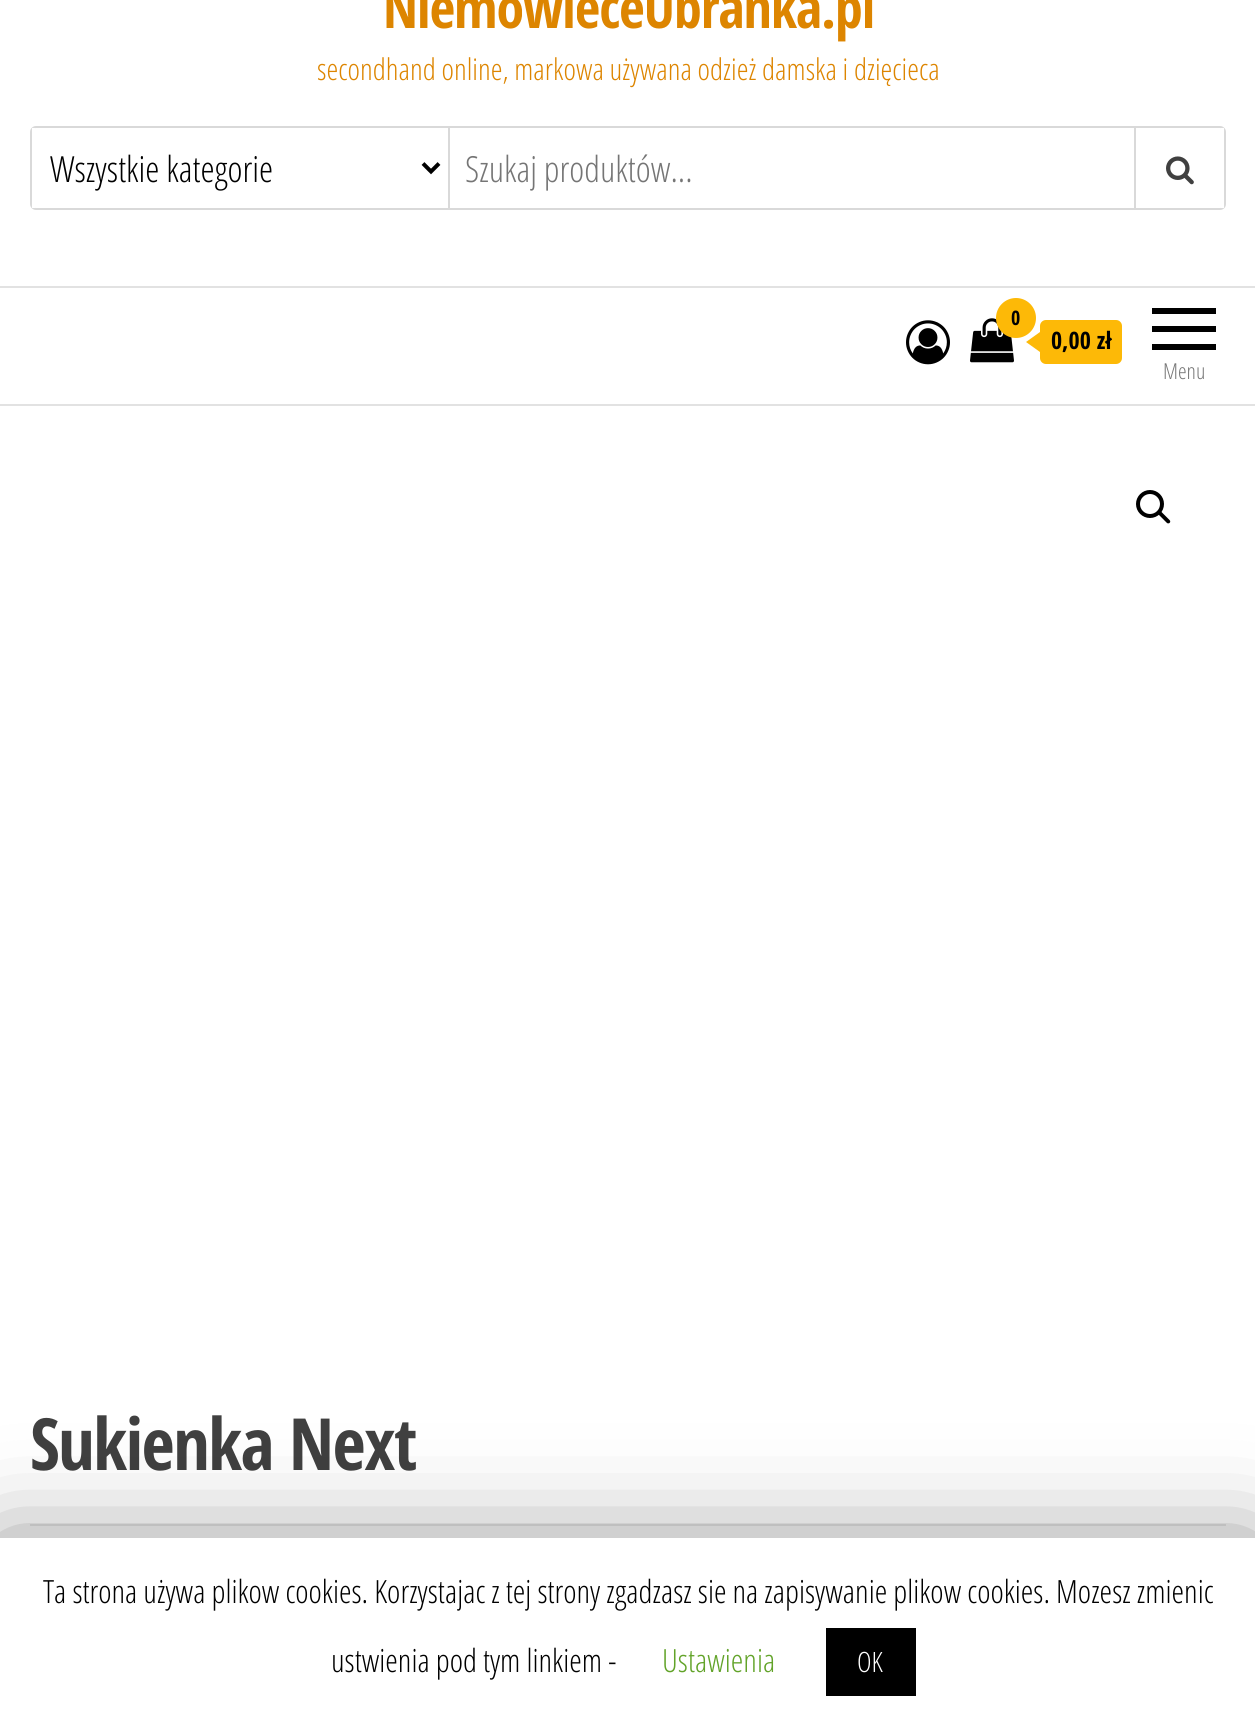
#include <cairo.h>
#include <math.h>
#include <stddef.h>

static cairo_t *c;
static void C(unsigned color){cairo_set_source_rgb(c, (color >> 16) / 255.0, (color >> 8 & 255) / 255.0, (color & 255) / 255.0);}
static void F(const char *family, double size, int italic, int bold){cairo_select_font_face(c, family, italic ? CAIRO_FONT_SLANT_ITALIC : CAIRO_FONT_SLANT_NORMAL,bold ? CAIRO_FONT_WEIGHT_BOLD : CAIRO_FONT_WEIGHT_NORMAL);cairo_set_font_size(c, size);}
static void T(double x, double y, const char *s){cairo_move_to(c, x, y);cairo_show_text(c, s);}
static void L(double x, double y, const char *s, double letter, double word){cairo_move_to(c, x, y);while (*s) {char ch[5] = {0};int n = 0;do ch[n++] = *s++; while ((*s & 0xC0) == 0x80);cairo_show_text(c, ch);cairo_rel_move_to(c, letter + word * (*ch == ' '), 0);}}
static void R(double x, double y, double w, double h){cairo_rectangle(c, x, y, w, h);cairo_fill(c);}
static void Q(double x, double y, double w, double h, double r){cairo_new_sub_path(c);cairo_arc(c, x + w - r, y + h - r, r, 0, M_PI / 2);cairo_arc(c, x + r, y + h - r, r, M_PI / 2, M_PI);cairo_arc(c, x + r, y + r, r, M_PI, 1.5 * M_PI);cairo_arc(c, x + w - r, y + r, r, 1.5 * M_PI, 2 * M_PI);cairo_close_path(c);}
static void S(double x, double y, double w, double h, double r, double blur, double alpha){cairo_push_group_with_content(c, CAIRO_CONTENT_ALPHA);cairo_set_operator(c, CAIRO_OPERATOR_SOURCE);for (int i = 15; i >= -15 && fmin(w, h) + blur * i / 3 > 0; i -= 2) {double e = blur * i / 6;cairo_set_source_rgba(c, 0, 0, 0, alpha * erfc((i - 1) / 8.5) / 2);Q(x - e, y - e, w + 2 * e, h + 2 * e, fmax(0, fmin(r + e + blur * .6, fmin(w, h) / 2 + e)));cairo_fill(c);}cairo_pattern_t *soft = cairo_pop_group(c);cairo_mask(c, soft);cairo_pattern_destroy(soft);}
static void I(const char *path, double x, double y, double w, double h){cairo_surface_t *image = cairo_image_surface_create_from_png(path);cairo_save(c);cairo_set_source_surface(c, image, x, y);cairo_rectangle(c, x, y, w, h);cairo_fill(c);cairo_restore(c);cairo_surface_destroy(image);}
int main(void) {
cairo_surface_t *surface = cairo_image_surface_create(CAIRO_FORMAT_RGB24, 1255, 1732);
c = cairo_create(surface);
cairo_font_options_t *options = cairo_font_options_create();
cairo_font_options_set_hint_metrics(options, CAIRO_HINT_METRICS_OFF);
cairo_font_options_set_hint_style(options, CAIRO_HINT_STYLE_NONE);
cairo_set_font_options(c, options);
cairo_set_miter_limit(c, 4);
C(0xffffff);
cairo_paint(c);
F("Open Sans Condensed",56,0,1);
C(0xdd8500);
L(383,28,"NiemowleceUbranka.pl",-1.1,0);
F("Open Sans Condensed Light",30,0,0);
T(317,80,"secondhand online, markowa używana odzież damska i dzięcieca");
Q(31,127,1194,82,5);
C(0xd9d9d9);
cairo_stroke(c);
C(0xffffff);
R(32,128,3,80);
C(0xd9d9d9);
R(448,128,2,80);
cairo_new_path(c);
cairo_move_to(c,423,163.5);
cairo_line_to(c,431,171.5);
cairo_line_to(c,439,163.5);
C(0x000000);
cairo_set_line_width(c,4);
cairo_stroke(c);
F("Open Sans Condensed Light",36,0,0);
T(50,182,"Wszystkie kategorie");
C(0xffffff);
R(1221,128,3,80);
C(0x757575);
T(465,182,"Szukaj produktów...");
C(0xd9d9d9);
R(1134,128,2,80);
I("1.png",1166,156,28,29);
C(0xe2e2e2);
R(0,286,1255,2);
R(0,404,1255,2);
I("2.png",906,320,44,45);
I("3.png",970,318,44,45);
C(0xfdb907);
cairo_arc(c,1016,318,20,0,2 * M_PI);
cairo_fill(c);
F("Open Sans Condensed",20,0,1);
C(0x000000);
T(1011,325,"0");
C(0xfdb907);
Q(1040,320,82,44,6);
cairo_fill(c);
cairo_new_path(c);
cairo_move_to(c,1040,332);
cairo_line_to(c,1040,352);
cairo_line_to(c,1026,342);
cairo_close_path(c);
cairo_fill(c);
F("Open Sans Condensed",24,0,1);
C(0x000000);
T(1051,349,"0,00 zł");
R(1152,308,64,6);
R(1152,326,64,6);
R(1152,344,64,6);
F("Open Sans Condensed Light",22,0,0);
C(0x757575);
T(1163,379,"Menu");
cairo_new_path(c);
cairo_arc(c,1150,504,12,0,2 * M_PI);
C(0x000000);
cairo_stroke(c);
cairo_new_path(c);
cairo_move_to(c,1158.5,511.5);
cairo_curve_to(c,1159,510.5,1160.5,510.5,1161,511.5);
cairo_line_to(c,1169.5,520);
cairo_curve_to(c,1170.5,521,1170.5,522,1169.5,523);
cairo_curve_to(c,1169,523.5,1167.5,523.5,1167,523);
cairo_line_to(c,1158.5,514.5);
cairo_curve_to(c,1157.5,513.5,1157.5,512.5,1158.5,511.5);
cairo_close_path(c);
cairo_fill(c);
C(0xeaeaea);
R(30,1524,1196,2);
F("Open Sans Condensed",72,0,1);
C(0x404040);
L(30,1470,"Sukienka Next",-1.5,0);
C(0x000000);
S(0,1548,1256,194,0,50,.5);
C(0xffffff);
R(0,1538,1255,194);
F("Open Sans Condensed Light",32,0,0);
C(0x000000);
T(43,1603,"Ta strona używa plikow cookies. Korzystajac z tej strony zgadzasz sie na zapisywanie plikow cookies. Mozesz zmienic");
T(331,1672,"ustwienia pod tym linkiem -");
C(0x62a329);
T(662,1672,"Ustawienia");
C(0x000000);
R(826,1628,90,68);
F("Open Sans Condensed Light",28,0,0);
C(0xffffff);
T(857,1672,"OK");
cairo_surface_write_to_png(surface, "o.png");
cairo_font_options_destroy(options);
cairo_destroy(c);
cairo_surface_destroy(surface);
return 0;
}
